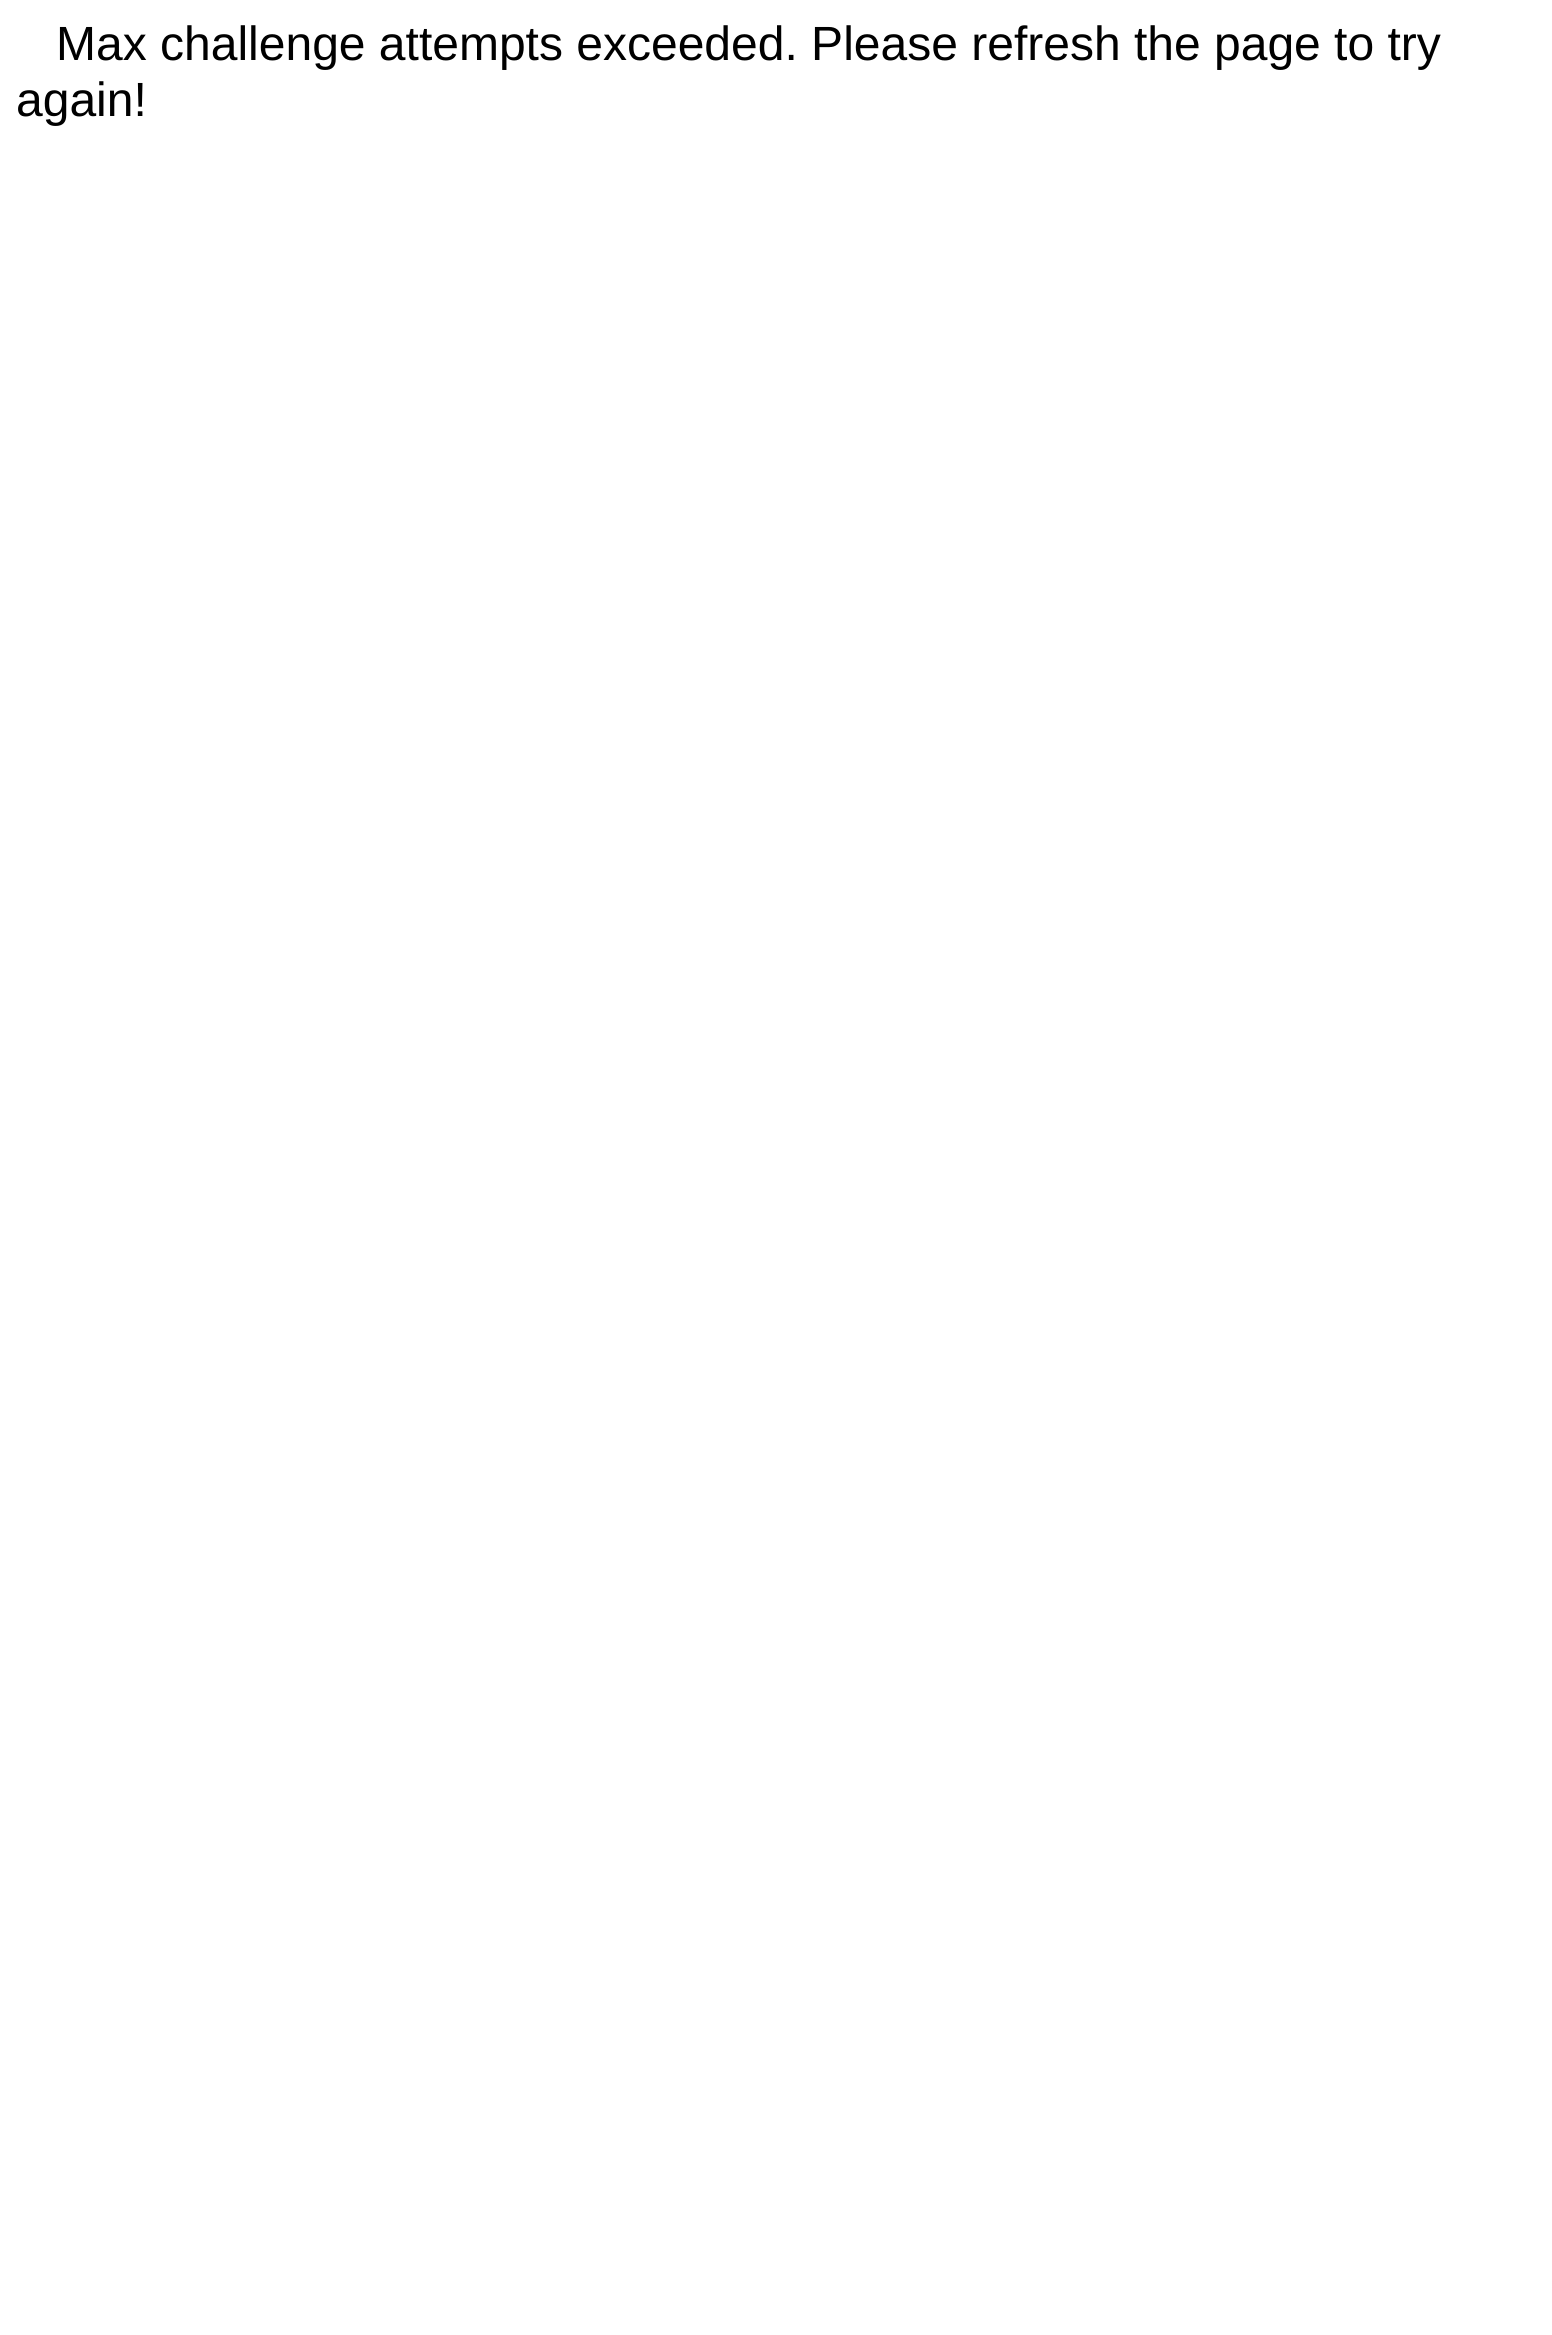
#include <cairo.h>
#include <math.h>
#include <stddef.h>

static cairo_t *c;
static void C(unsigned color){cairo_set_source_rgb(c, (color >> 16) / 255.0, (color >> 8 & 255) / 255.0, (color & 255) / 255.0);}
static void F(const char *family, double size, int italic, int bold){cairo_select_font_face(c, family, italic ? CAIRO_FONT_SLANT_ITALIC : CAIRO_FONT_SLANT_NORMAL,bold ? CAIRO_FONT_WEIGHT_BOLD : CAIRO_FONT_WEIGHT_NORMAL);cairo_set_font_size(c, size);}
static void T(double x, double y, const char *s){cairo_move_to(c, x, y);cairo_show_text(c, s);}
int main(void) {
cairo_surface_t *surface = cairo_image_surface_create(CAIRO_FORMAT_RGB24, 1552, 2335);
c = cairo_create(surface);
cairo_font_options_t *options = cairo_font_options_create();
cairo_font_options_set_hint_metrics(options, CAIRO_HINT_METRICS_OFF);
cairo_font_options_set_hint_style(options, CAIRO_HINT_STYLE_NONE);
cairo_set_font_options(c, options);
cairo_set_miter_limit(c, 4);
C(0xffffff);
cairo_paint(c);
F("Liberation Sans",48,0,0);
C(0x000000);
T(56,60,"Max challenge attempts exceeded. Please refresh the page to try");
T(16,116,"again!");
cairo_surface_write_to_png(surface, "o.png");
cairo_font_options_destroy(options);
cairo_destroy(c);
cairo_surface_destroy(surface);
return 0;
}
